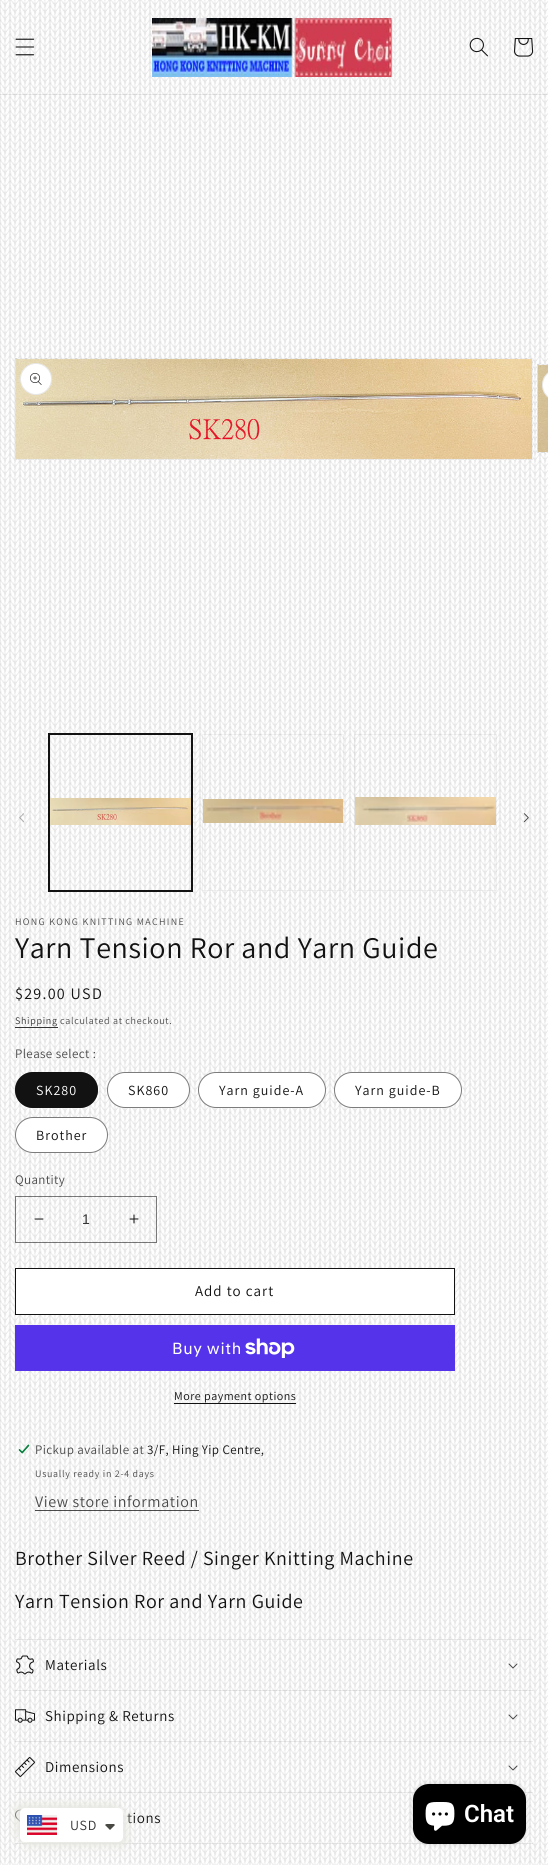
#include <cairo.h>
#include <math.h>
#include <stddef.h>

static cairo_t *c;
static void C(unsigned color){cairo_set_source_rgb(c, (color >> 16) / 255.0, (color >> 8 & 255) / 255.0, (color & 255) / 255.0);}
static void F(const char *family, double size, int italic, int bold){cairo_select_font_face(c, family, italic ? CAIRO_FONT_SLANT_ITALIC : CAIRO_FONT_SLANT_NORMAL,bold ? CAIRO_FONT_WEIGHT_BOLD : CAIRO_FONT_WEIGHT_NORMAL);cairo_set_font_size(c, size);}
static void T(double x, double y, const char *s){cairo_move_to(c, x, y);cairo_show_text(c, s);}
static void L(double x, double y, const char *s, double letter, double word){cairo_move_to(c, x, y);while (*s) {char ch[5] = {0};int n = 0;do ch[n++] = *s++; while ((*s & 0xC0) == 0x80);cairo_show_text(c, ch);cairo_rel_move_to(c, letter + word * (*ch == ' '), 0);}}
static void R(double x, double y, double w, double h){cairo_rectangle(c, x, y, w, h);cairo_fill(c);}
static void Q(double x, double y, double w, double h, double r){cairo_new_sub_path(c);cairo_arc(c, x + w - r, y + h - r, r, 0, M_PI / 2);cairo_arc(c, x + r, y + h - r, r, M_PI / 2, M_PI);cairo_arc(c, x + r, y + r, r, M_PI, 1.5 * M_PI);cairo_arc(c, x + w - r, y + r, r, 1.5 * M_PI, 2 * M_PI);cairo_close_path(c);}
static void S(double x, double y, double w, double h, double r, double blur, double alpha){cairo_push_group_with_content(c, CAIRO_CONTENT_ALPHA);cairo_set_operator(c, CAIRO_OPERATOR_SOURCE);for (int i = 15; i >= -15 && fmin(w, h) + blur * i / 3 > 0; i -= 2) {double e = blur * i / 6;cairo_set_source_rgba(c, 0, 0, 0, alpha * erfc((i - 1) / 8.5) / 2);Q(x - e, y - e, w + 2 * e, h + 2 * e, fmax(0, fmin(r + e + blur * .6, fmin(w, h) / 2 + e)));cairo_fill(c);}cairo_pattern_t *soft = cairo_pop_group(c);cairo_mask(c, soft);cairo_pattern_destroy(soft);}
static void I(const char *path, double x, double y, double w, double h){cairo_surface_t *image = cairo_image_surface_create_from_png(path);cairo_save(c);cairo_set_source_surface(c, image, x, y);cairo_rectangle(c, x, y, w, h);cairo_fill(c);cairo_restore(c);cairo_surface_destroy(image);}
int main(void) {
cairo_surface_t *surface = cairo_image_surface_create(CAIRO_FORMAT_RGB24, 548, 1865);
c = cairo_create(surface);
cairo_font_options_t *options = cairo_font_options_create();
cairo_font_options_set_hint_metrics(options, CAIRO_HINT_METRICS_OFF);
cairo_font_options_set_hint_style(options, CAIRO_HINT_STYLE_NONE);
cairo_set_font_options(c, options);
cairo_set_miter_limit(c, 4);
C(0xffffff);
cairo_paint(c);
I("1.png",0,0,548,1865);
cairo_set_source_rgba(c,0.071,0.071,0.071,0.08);
R(0,94,548,1);
I("2.png",15,38,20,18);
I("3.png",152,18,241,59);
I("4.png",469,37,19,20);
I("5.png",514,38,20,19);
I("6.png",15,358,518,102);
cairo_rectangle(c,15.5,358.5,517,101);
cairo_set_source_rgba(c,0.071,0.071,0.071,0.05);
cairo_set_line_width(c,1);
cairo_stroke(c);
I("7.png",16,359,516,100);
C(0xffffff);
cairo_arc(c,36,379,16,0,2 * M_PI);
cairo_fill(c);
cairo_arc(c,36,379,15.5,0,2 * M_PI);
cairo_set_source_rgba(c,0.071,0.071,0.071,0.1);
cairo_stroke(c);
I("8.png",30,373,12,12);
I("9.png",537,364,11,89);
cairo_rectangle(c,537.5,364.5,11,88);
cairo_set_source_rgba(c,0.071,0.071,0.071,0.05);
cairo_stroke(c);
I("10.png",538,365,10,87);
C(0xffffff);
cairo_new_path(c);
cairo_move_to(c,558,369);
cairo_line_to(c,548,369);
cairo_line_to(c,548,401);
cairo_line_to(c,558,401);
cairo_curve_to(c,549,401,542,394,542,385);
cairo_curve_to(c,542,376,549,369,558,369);
cairo_close_path(c);
cairo_fill(c);
Q(542.5,369.5,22,31,15.5);
cairo_set_source_rgba(c,0.071,0.071,0.071,0.1);
cairo_stroke(c);
I("11.png",19,813,5,9);
cairo_rectangle(c,48.5,733.5,144,158);
C(0x121212);
cairo_stroke(c);
cairo_rectangle(c,49.5,734.5,142,156);
cairo_stroke(c);
I("12.png",50,798,141,27);
cairo_rectangle(c,202.5,734.5,141,156);
cairo_set_source_rgba(c,0.071,0.071,0.071,0.05);
cairo_stroke(c);
I("13.png",203,799,140,24);
cairo_rectangle(c,354.5,734.5,142,156);
cairo_stroke(c);
I("14.png",355,797,141,28);
I("15.png",523,813,6,10);
F("Assistant",10,0,0);
C(0x4b4a4b);
L(15,925,"HONG KONG KNITTING MACHINE",1.3,0);
F("Assistant",30,0,0);
C(0x121212);
L(15,958,"Yarn Tension Ror and Yarn Guide",.6,0);
F("Assistant",16,0,0);
L(15,999,"$29.00 USD",1.3,0);
F("Assistant",10,0,0);
C(0x343434);
L(15,1024,"Shipping",.7,0);
cairo_set_source_rgba(c,0.071,0.071,0.071,0.85);
R(15,1027,43,1);
C(0x4b4a4b);
L(60,1024,"calculated at checkout.",.7,0);
F("Assistant",13,0,0);
L(15,1058,"Please select :",.4,0);
C(0x121212);
Q(15,1072,83,36,18);
cairo_fill(c);
Q(15.5,1072.5,82,35,17.5);
cairo_set_source_rgba(c,0.071,0.071,0.071,0.55);
cairo_stroke(c);
F("Assistant",14,0,0);
C(0xffffff);
L(36,1095,"SK280",1,0);
Q(107,1072,83,36,18);
cairo_fill(c);
Q(107.5,1072.5,82,35,17.5);
cairo_set_source_rgba(c,0.071,0.071,0.071,0.55);
cairo_stroke(c);
C(0x121212);
L(128,1095,"SK860",1,0);
C(0xffffff);
Q(198,1072,128,36,18);
cairo_fill(c);
Q(198.5,1072.5,127,35,17.5);
cairo_set_source_rgba(c,0.071,0.071,0.071,0.55);
cairo_stroke(c);
C(0x121212);
L(219,1095,"Yarn guide-A",1,0);
C(0xffffff);
Q(334,1072,128,36,18);
cairo_fill(c);
Q(334.5,1072.5,127,35,17.5);
cairo_set_source_rgba(c,0.071,0.071,0.071,0.55);
cairo_stroke(c);
C(0x121212);
L(355,1095,"Yarn guide-B",1,0);
C(0xffffff);
Q(15,1117,93,36,18);
cairo_fill(c);
Q(15.5,1117.5,92,35,17.5);
cairo_set_source_rgba(c,0.071,0.071,0.071,0.55);
cairo_stroke(c);
C(0x121212);
L(36,1140,"Brother",1,0);
F("Assistant",13,0,0);
C(0x4b4a4b);
L(15,1184,"Quantity",.4,0);
I("16.png",34,1218,10,2);
I("17.png",129,1214,10,10);
cairo_rectangle(c,15.5,1196.5,141,46);
cairo_set_source_rgba(c,0.071,0.071,0.071,0.55);
cairo_stroke(c);
F("Liberation Sans",14,0,0);
C(0x343434);
T(82,1224,"1");
C(0xffffff);
R(16,1269,438,45);
cairo_rectangle(c,15.5,1268.5,439,46);
C(0x121212);
cairo_stroke(c);
F("Assistant",15,0,0);
L(195,1296,"Add to cart",1,0);
C(0x5433eb);
R(15,1325,440,46);
F("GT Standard",16,0,0);
C(0xffffff);
L(172,1354,"Buy with",.6,0);
I("18.png",245,1338,50,20);
F("Assistant",12,0,0);
C(0x121212);
L(174,1400,"More payment options",.5,0);
R(174,1403,122,1);
I("19.png",18,1444,13,10);
F("Assistant",13,0,0);
C(0x4b4a4b);
L(35,1454,"Pickup available at",.4,0);
C(0x121212);
L(147,1454,"3/F, Hing Yip Centre,",.4,0);
F("Assistant",10,0,0);
C(0x4b4a4b);
L(35,1477,"Usually ready in 2-4 days",.7,0);
F("Assistant",16,0,0);
L(35,1507,"View store information",.6,0);
cairo_set_source_rgba(c,0.071,0.071,0.071,0.75);
R(35,1510,164,1);
F("Assistant",20,0,0);
C(0x121212);
L(15,1565,"Brother Silver Reed / Singer Knitting Machine",.6,0);
L(15,1608,"Yarn Tension Ror and Yarn Guide",.6,0);
cairo_set_source_rgba(c,0.071,0.071,0.071,0.08);
R(15,1639,518,1);
R(15,1690,518,1);
I("20.png",16,1655,18,20);
F("Assistant",15,0,0);
C(0x121212);
L(45,1670,"Materials",.6,0);
I("21.png",508,1663,10,6);
cairo_set_source_rgba(c,0.071,0.071,0.071,0.08);
R(15,1741,518,1);
I("22.png",15,1709,20,14);
C(0x121212);
L(45,1721,"Shipping & Returns",.6,0);
I("23.png",508,1714,10,6);
cairo_set_source_rgba(c,0.071,0.071,0.071,0.08);
R(15,1792,518,1);
I("24.png",15,1757,20,20);
C(0x121212);
L(45,1772,"Dimensions",.6,0);
I("25.png",508,1765,10,6);
cairo_set_source_rgba(c,0.071,0.071,0.071,0.08);
R(15,1843,518,1);
I("26.png",15,1809,7,13);
C(0x121212);
L(127,1823,"tions",.6,0);
C(0x000000);
S(413,1784,113,60,16,2.5,.15);
C(0x000000);
Q(413,1784,113,60,16);
cairo_fill(c);
I("27.png",425,1802,30,29);
F("Roboto SemiBold",24,0,0);
C(0xffffff);
T(464,1822,"Chat");
C(0xe8e8e2);
S(16,1804,103,34,5,4.5,1);
S(24,1812,103,34,5,4.5,1);
C(0xffffff);
Q(20,1808,103,34,5);
cairo_fill(c);
I("28.png",27,1815,30,20);
F("Assistant",14,0,0);
C(0x343434);
L(70,1830,"USD",.6,0);
C(0x474942);
cairo_new_path(c);
cairo_move_to(c,107,1824);
cairo_curve_to(c,106,1824,105.5,1824.5,105,1825);
cairo_line_to(c,110,1830);
cairo_line_to(c,115,1825);
cairo_line_to(c,114,1824);
cairo_close_path(c);
cairo_fill(c);
cairo_surface_write_to_png(surface, "o.png");
cairo_font_options_destroy(options);
cairo_destroy(c);
cairo_surface_destroy(surface);
return 0;
}
